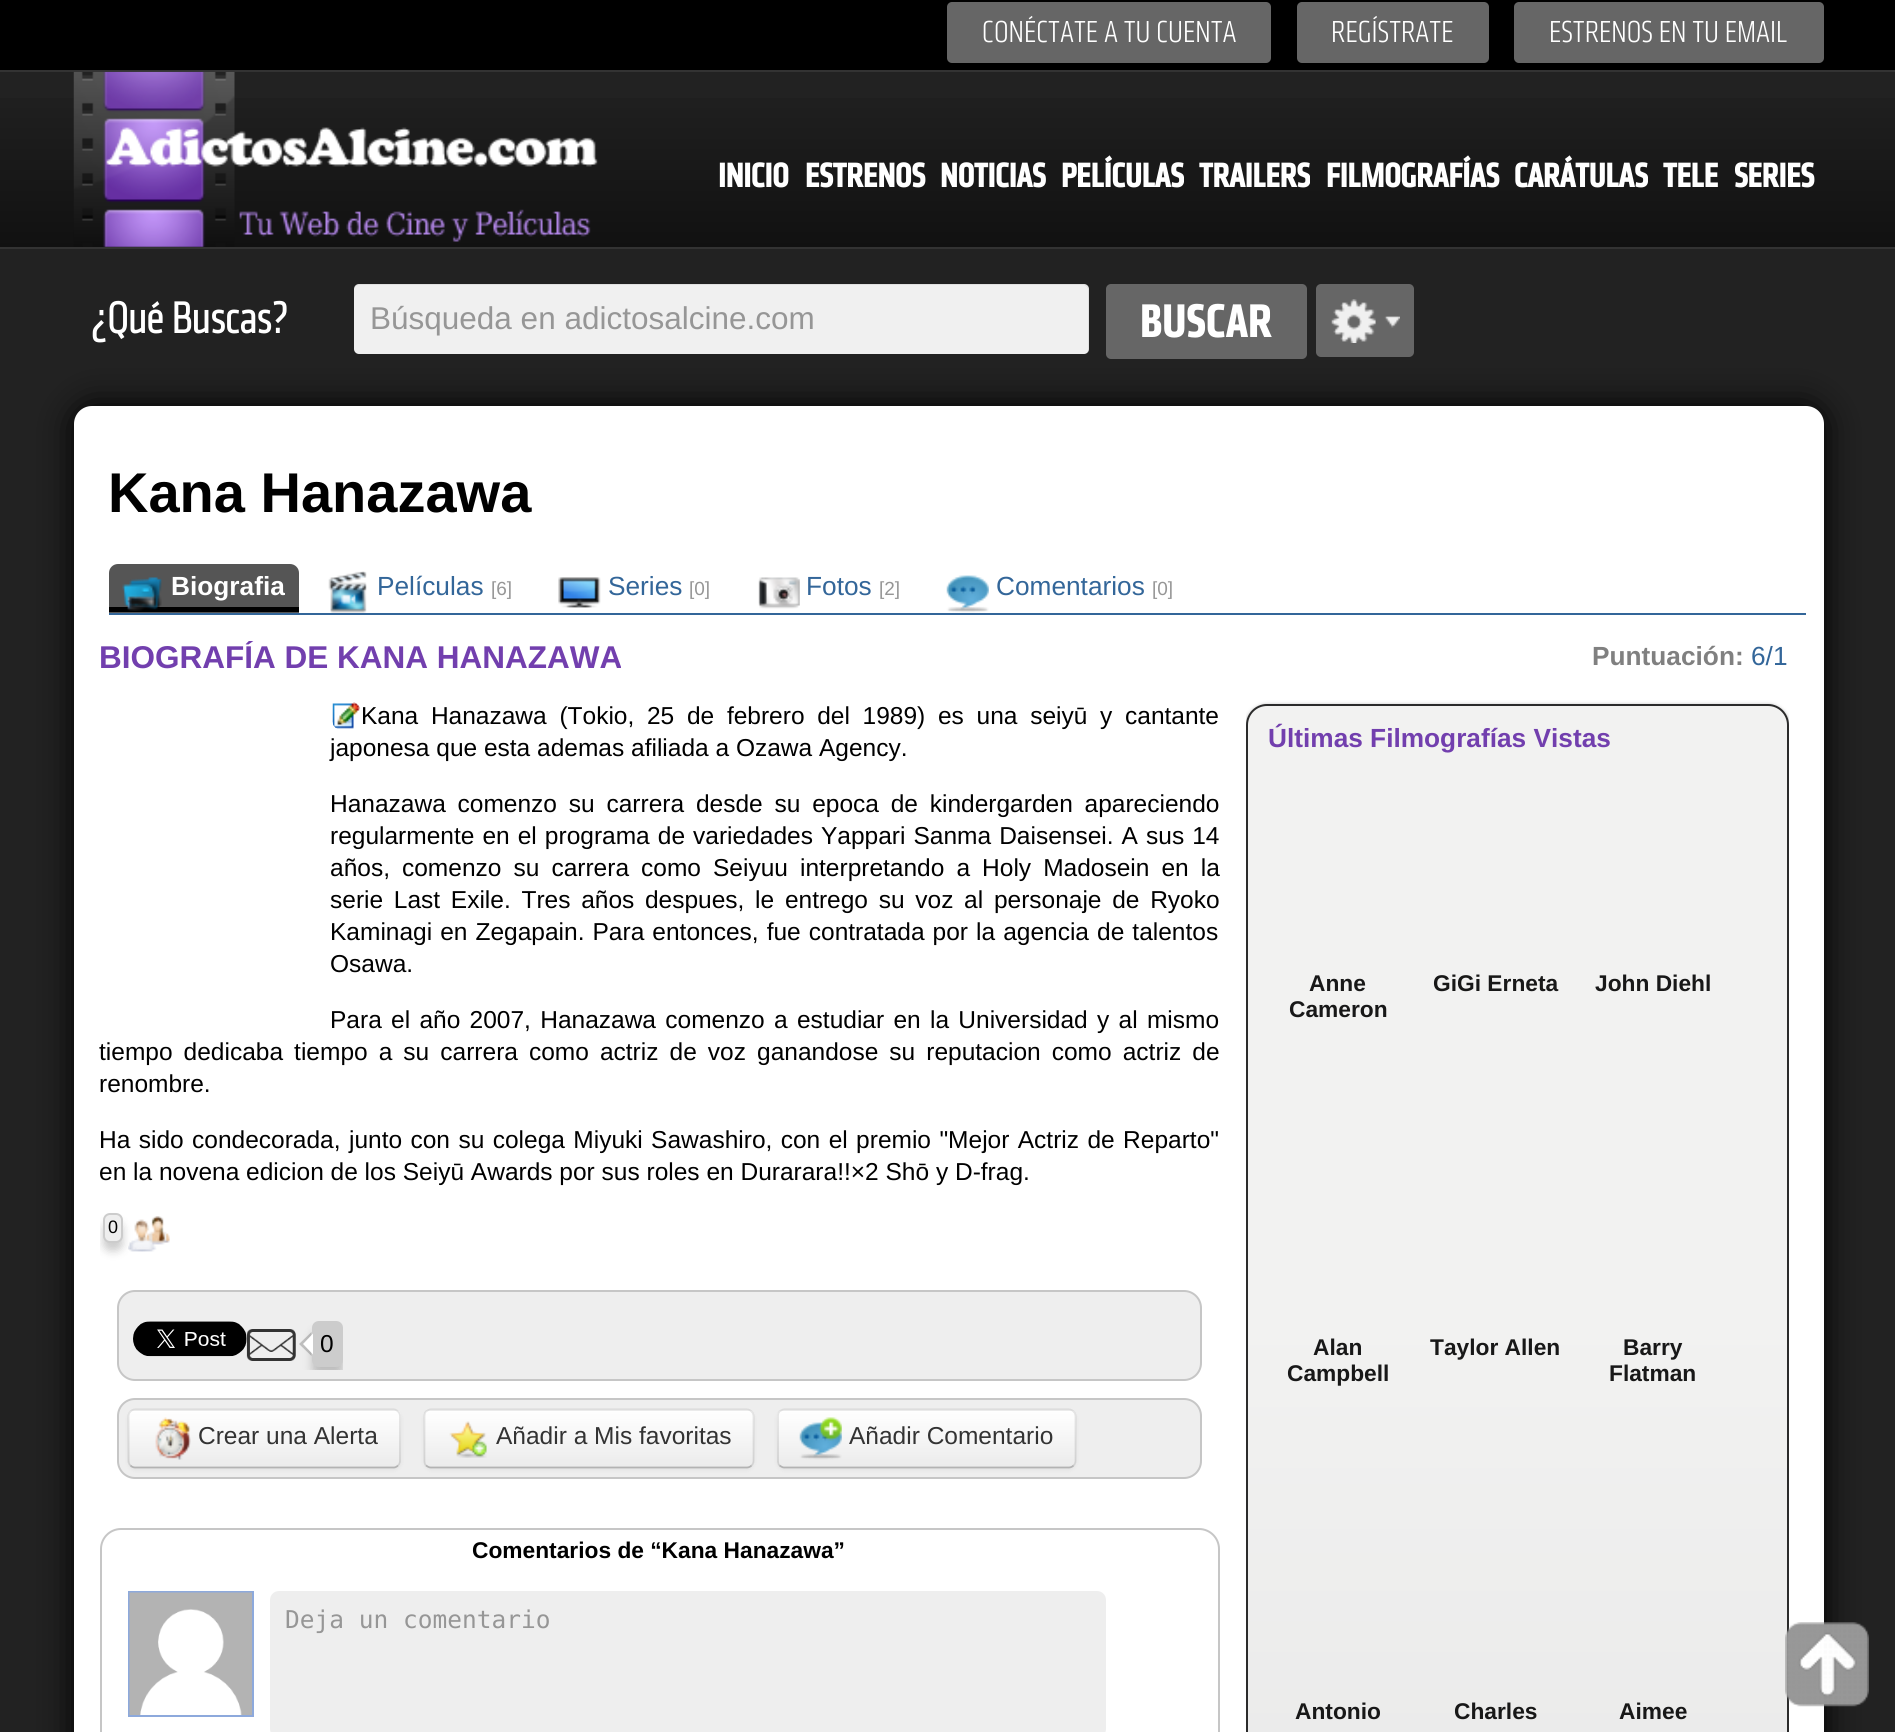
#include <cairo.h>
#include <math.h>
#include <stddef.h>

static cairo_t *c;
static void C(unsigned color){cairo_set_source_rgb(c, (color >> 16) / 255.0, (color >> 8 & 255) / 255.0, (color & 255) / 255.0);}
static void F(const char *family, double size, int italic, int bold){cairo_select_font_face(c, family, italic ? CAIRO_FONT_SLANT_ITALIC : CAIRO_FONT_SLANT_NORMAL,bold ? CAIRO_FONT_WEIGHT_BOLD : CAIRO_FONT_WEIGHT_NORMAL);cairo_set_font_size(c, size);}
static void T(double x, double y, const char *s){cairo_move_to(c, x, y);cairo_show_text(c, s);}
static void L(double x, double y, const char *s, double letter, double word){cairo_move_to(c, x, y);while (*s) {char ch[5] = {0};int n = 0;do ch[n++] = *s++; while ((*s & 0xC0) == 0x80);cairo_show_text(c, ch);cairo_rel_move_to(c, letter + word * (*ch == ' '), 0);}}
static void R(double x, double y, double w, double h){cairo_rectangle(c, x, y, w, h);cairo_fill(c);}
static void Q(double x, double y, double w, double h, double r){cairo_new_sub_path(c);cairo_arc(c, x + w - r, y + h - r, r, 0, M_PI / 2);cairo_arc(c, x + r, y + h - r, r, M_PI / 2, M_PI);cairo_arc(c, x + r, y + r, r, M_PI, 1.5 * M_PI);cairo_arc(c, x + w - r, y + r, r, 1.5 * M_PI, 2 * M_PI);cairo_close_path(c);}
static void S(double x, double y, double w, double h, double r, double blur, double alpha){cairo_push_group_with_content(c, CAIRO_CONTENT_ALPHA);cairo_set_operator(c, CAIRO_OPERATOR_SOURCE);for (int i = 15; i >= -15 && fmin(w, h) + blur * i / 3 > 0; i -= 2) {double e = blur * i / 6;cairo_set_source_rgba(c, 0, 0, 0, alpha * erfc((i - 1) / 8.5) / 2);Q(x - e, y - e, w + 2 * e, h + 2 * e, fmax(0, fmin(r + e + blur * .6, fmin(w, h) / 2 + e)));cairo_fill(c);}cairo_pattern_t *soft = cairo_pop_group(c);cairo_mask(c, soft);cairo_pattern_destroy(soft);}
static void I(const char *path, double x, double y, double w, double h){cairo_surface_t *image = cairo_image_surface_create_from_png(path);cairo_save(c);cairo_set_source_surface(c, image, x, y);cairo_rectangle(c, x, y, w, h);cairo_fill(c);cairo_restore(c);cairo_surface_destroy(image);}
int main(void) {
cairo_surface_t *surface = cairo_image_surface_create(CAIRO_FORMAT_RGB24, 1895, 1732);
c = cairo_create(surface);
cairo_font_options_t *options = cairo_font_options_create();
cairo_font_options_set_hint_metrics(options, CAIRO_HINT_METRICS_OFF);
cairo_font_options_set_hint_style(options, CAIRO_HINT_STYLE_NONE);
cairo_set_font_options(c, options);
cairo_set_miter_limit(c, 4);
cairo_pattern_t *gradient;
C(0x222222);
cairo_paint(c);
C(0x000000);
R(0,0,1895,70);
C(0x333333);
R(0,70,1895,2);
C(0x666666);
Q(947,2,324,61,5);
cairo_fill(c);
F("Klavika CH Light",31.5,0,0);
C(0xffffff);
T(982,42,"CONÉCTATE A TU CUENTA");
C(0x666666);
Q(1297,2,192,61,5);
cairo_fill(c);
C(0xffffff);
T(1331,42,"REGÍSTRATE");
C(0x666666);
Q(1514,2,310,61,5);
cairo_fill(c);
C(0xffffff);
T(1549,42,"ESTRENOS EN TU EMAIL");
gradient = cairo_pattern_create_linear(948,72,948,247);
cairo_pattern_add_color_stop_rgba(gradient,0,0.133,0.133,0.133,1);
cairo_pattern_add_color_stop_rgba(gradient,1,0.067,0.067,0.067,1);
cairo_set_source(c,gradient);
cairo_pattern_destroy(gradient);
R(0,98,1895,149);
C(0x333333);
R(0,247,1895,2);
I("1.png",73,71,525,176);
F("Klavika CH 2",35,0,1);
C(0xffffff);
T(718,187,"INICIO");
T(805,187,"ESTRENOS");
T(940,187,"NOTICIAS");
T(1061,187,"PELÍCULAS");
T(1199,187,"TRAILERS");
T(1326,187,"FILMOGRAFÍAS");
T(1514,187,"CARÁTULAS");
T(1663,187,"TELE");
T(1734,187,"SERIES");
F("Klavika CH",45.5,0,1);
T(90,333,"¿Qué Buscas?");
C(0x000000);
S(74,406,1750,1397,18,17.5,1);
C(0xf0f0f0);
Q(354,284,735,70,5);
cairo_fill(c);
cairo_set_source_rgba(c,0,0,0,0.07);
cairo_new_path(c);
cairo_move_to(c,359,285);
cairo_line_to(c,1083,285);
cairo_curve_to(c,1086,285,1088,288,1088,290);
cairo_line_to(c,1088,350);
cairo_line_to(c,1087,353);
cairo_curve_to(c,1088,352,1089,350,1089,349);
cairo_line_to(c,1089,289);
cairo_curve_to(c,1089,286,1087,284,1084,284);
cairo_line_to(c,359,284);
cairo_curve_to(c,356,284,354,286,354,289);
cairo_line_to(c,354,290);
cairo_curve_to(c,354,288,356,285,359,285);
cairo_close_path(c);
cairo_fill(c);
F("Liberation Sans",31.5,0,0);
C(0x969696);
T(370,329,"Búsqueda en adictosalcine.com");
C(0x666666);
Q(1106,284,201,75,5);
cairo_fill(c);
F("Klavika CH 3",49,0,1);
C(0xffffff);
T(1140,337,"BUSCAR");
C(0x666666);
Q(1316,284,98,73,5);
cairo_fill(c);
I("2.png",1331,299,69,44);
C(0xffffff);
cairo_new_path(c);
cairo_move_to(c,92,406);
cairo_line_to(c,1806,406);
cairo_curve_to(c,1816,406,1824,414,1824,424);
cairo_line_to(c,1824,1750);
cairo_line_to(c,74,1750);
cairo_line_to(c,74,424);
cairo_curve_to(c,74,414,82,406,92,406);
cairo_close_path(c);
cairo_fill(c);
F("Liberation Sans",56,0,1);
C(0x000000);
T(108,512,"Kana Hanazawa");
C(0x336699);
R(109,613,1697,2);
C(0x555555);
cairo_new_path(c);
cairo_move_to(c,118,564);
cairo_line_to(c,290,564);
cairo_curve_to(c,295,564,299,568,299,573);
cairo_line_to(c,299,613);
cairo_line_to(c,109,613);
cairo_line_to(c,109,573);
cairo_curve_to(c,109,568,113,564,118,564);
cairo_close_path(c);
cairo_fill(c);
C(0x000000);
R(109,607,190,5);
I("3.png",122,577,40,34);
F("Liberation Sans",26.25,0,1);
C(0xffffff);
T(171,595,"Biografia");
I("4.png",328,571,39,42);
F("Liberation Sans",26.25,0,0);
C(0x336699);
T(377,595,"Películas");
F("Liberation Sans",19,0,0);
C(0x969696);
T(491,595,"[6]");
I("5.png",558,577,43,31);
F("Liberation Sans",26.25,0,0);
C(0x336699);
T(608,595,"Series");
F("Liberation Sans",19,0,0);
C(0x969696);
T(689,595,"[0]");
I("6.png",758,577,42,32);
F("Liberation Sans",26.25,0,0);
C(0x336699);
T(806,595,"Fotos");
F("Liberation Sans",19,0,0);
C(0x969696);
T(879,595,"[2]");
I("7.png",946,575,43,38);
F("Liberation Sans",26.25,0,0);
C(0x336699);
T(996,595,"Comentarios");
F("Liberation Sans",19,0,0);
C(0x969696);
T(1152,595,"[0]");
cairo_save(c);
cairo_rectangle(c,100,641,1120,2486);
cairo_clip(c);
F("Liberation Sans",31.5,0,1);
C(0x723fae);
T(99,668,"BIOGRAFÍA DE KANA HANAZAWA");
cairo_restore(c);
I("8.png",332,702,29,27);
F("Liberation Sans",24.5,0,0);
C(0x000000);
L(361,724,"Kana Hanazawa (Tokio, 25 de febrero del 1989) es una seiyū y cantante",0,5.9);
T(330,756,"japonesa que esta ademas afiliada a Ozawa Agency.");
L(330,812,"Hanazawa comenzo su carrera desde su epoca de kindergarden apareciendo",0,5);
L(330,844,"regularmente en el programa de variedades Yappari Sanma Daisensei. A sus 14",0,1.25);
L(330,876,"años, comenzo su carrera como Seiyuu interpretando a Holy Madosein en la",0,5.25);
L(330,908,"serie Last Exile. Tres años despues, le entrego su voz al personaje de Ryoko",0,3.9);
L(330,940,"Kaminagi en Zegapain. Para entonces, fue contratada por la agencia de talentos",0,1.25);
T(330,972,"Osawa.");
L(330,1028,"Para el año 2007, Hanazawa comenzo a estudiar en la Universidad y al mismo",0,2.5);
L(99,1060,"tiempo dedicaba tiempo a su carrera como actriz de voz ganandose su reputacion como actriz de",0,4.25);
T(99,1092,"renombre.");
L(99,1148,"Ha sido condecorada, junto con su colega Miyuki Sawashiro, con el premio \"Mejor Actriz de Reparto\"",0,1.6);
T(99,1180,"en la novena edicion de los Seiyū Awards por sus roles en Durarara!!×2 Shō y D-frag.");
I("9.png",128,1216,42,36);
cairo_save(c);
cairo_rectangle(c,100,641,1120,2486);
cairo_clip(c);
C(0x000000);
S(103,1222,20,29,7,4.5,.2);
cairo_restore(c);
C(0xeeeeee);
Q(104,1214,18,28,6);
cairo_fill_preserve(c);
C(0xcccccc);
cairo_stroke(c);
F("Liberation Sans",18,0,0);
C(0x000000);
T(108,1233,"0");
C(0xeeeeee);
Q(118,1291,1083,89,17);
cairo_fill_preserve(c);
C(0xc6c6c6);
cairo_stroke(c);
I("10.png",133,1321,114,36);
I("11.png",246,1329,50,32);
cairo_save(c);
cairo_rectangle(c,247,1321,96,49);
cairo_clip(c);
C(0x000000);
S(312,1330,31,46,7,4.5,.2);
cairo_restore(c);
C(0xcccccc);
cairo_new_path(c);
cairo_move_to(c,319,1321);
cairo_line_to(c,336,1321);
cairo_curve_to(c,340,1321,343,1324,343,1328);
cairo_line_to(c,343,1360);
cairo_curve_to(c,343,1364,340,1367,336,1367);
cairo_line_to(c,319,1367);
cairo_curve_to(c,315,1367,312,1364,312,1360);
cairo_line_to(c,312,1328);
cairo_curve_to(c,312,1324,315,1321,319,1321);
cairo_close_path(c);
cairo_fill(c);
cairo_set_source_rgba(c,0,0,0,0.2);
cairo_new_path(c);
cairo_move_to(c,311.5,1332);
cairo_line_to(c,311.5,1356);
cairo_line_to(c,299,1344);
cairo_close_path(c);
cairo_fill(c);
C(0xffffff);
cairo_new_path(c);
cairo_move_to(c,313,1333.5);
cairo_line_to(c,313,1354.5);
cairo_line_to(c,303,1344);
cairo_close_path(c);
cairo_fill(c);
F("Liberation Sans",24.5,0,0);
C(0x000000);
T(320,1352,"0");
C(0xeeeeee);
Q(118,1399,1083,79,17);
cairo_fill_preserve(c);
C(0xc6c6c6);
cairo_stroke(c);
C(0x000000);
S(128,1411,273,59,7,2,.05);
C(0xf5f5f5);
Q(128,1409,273,59,7);
cairo_fill(c);
cairo_save(c);
Q(128,1409,273,59,7);
cairo_clip(c);
gradient = cairo_pattern_create_linear(264,1411,264,1467);
cairo_pattern_add_color_stop_rgba(gradient,0,1,1,1,1);
cairo_pattern_add_color_stop_rgba(gradient,1,0.902,0.902,0.902,1);
cairo_set_source(c,gradient);
cairo_pattern_destroy(gradient);
R(128,1411,273,56);
cairo_restore(c);
cairo_set_source_rgba(c,1,1,1,0.2);
cairo_new_path(c);
cairo_move_to(c,135,1411);
cairo_curve_to(c,132,1411,130,1413,130,1416);
cairo_line_to(c,130,1462);
cairo_curve_to(c,130,1465,132,1467,135,1467);
cairo_line_to(c,394,1467);
cairo_curve_to(c,397,1467,399,1465,399,1462);
cairo_line_to(c,399,1416);
cairo_curve_to(c,399,1413,397,1411,394,1411);
cairo_close_path(c);
cairo_fill(c);
cairo_new_path(c);
cairo_move_to(c,398,1465.5);
cairo_curve_to(c,397,1466.5,395.5,1467.5,394,1467.5);
cairo_line_to(c,135,1467.5);
cairo_curve_to(c,133,1467.5,131.5,1466.5,130.5,1465.5);
C(0xb3b3b3);
cairo_set_line_width(c,1.8);
cairo_stroke(c);
cairo_new_path(c);
cairo_move_to(c,130.5,1465.5);
cairo_curve_to(c,129.5,1464.5,128.5,1463,128.5,1461);
cairo_line_to(c,128.5,1416);
cairo_curve_to(c,128.5,1414,129.5,1412.5,130.5,1411.5);
cairo_curve_to(c,131.5,1410.5,133,1409.5,135,1409.5);
cairo_line_to(c,394,1409.5);
cairo_curve_to(c,395.5,1409.5,397,1410.5,398,1411.5);
cairo_curve_to(c,399,1412.5,400,1414,400,1416);
cairo_line_to(c,400,1461);
cairo_curve_to(c,400,1463,399,1464.5,398,1465.5);
cairo_set_source_rgba(c,0,0,0,0.1);
cairo_stroke(c);
I("12.png",155,1417,36,43);
C(0x333333);
T(198,1444,"Crear una Alerta");
C(0x000000);
S(424,1411,330,59,7,2,.05);
C(0xf5f5f5);
Q(424,1409,330,59,7);
cairo_fill(c);
cairo_save(c);
Q(424,1409,330,59,7);
cairo_clip(c);
gradient = cairo_pattern_create_linear(589,1411,589,1467);
cairo_pattern_add_color_stop_rgba(gradient,0,1,1,1,1);
cairo_pattern_add_color_stop_rgba(gradient,1,0.902,0.902,0.902,1);
cairo_set_source(c,gradient);
cairo_pattern_destroy(gradient);
R(424,1411,330,56);
cairo_restore(c);
cairo_set_source_rgba(c,1,1,1,0.2);
cairo_new_path(c);
cairo_move_to(c,430,1411);
cairo_curve_to(c,427,1411,425,1413,425,1416);
cairo_line_to(c,425,1462);
cairo_curve_to(c,425,1465,427,1467,430,1467);
cairo_line_to(c,748,1467);
cairo_curve_to(c,751,1467,753,1465,753,1462);
cairo_line_to(c,753,1416);
cairo_curve_to(c,753,1413,751,1411,748,1411);
cairo_close_path(c);
cairo_fill(c);
cairo_new_path(c);
cairo_move_to(c,751.5,1465.5);
cairo_curve_to(c,750.5,1466.5,749,1467.5,747,1467.5);
cairo_line_to(c,430.5,1467.5);
cairo_curve_to(c,429,1467.5,427.5,1466.5,426,1465.5);
C(0xb3b3b3);
cairo_stroke(c);
cairo_new_path(c);
cairo_move_to(c,426,1465.5);
cairo_curve_to(c,425,1464.5,424.5,1463,424.5,1461);
cairo_line_to(c,424.5,1416);
cairo_curve_to(c,424.5,1414,425,1412.5,426,1411.5);
cairo_curve_to(c,427.5,1410.5,429,1409.5,430.5,1409.5);
cairo_line_to(c,747,1409.5);
cairo_curve_to(c,749,1409.5,750.5,1410.5,751.5,1411.5);
cairo_curve_to(c,752.5,1412.5,753.5,1414,753.5,1416);
cairo_line_to(c,753.5,1461);
cairo_curve_to(c,753.5,1463,752.5,1464.5,751.5,1465.5);
cairo_set_source_rgba(c,0,0,0,0.1);
cairo_stroke(c);
I("13.png",449,1421,38,37);
C(0x333333);
T(496,1444,"Añadir a Mis favoritas");
C(0x000000);
S(777,1411,299,59,7,2,.05);
C(0xf5f5f5);
Q(777,1409,299,59,7);
cairo_fill(c);
cairo_save(c);
Q(777,1409,299,59,7);
cairo_clip(c);
gradient = cairo_pattern_create_linear(927,1411,927,1467);
cairo_pattern_add_color_stop_rgba(gradient,0,1,1,1,1);
cairo_pattern_add_color_stop_rgba(gradient,1,0.902,0.902,0.902,1);
cairo_set_source(c,gradient);
cairo_pattern_destroy(gradient);
R(777,1411,299,56);
cairo_restore(c);
cairo_set_source_rgba(c,1,1,1,0.2);
cairo_new_path(c);
cairo_move_to(c,784,1411);
cairo_curve_to(c,781,1411,779,1413,779,1416);
cairo_line_to(c,779,1462);
cairo_curve_to(c,779,1465,781,1467,784,1467);
cairo_line_to(c,1070,1467);
cairo_curve_to(c,1073,1467,1075,1465,1075,1462);
cairo_line_to(c,1075,1416);
cairo_curve_to(c,1075,1413,1073,1411,1070,1411);
cairo_close_path(c);
cairo_fill(c);
cairo_new_path(c);
cairo_move_to(c,1073.5,1465.5);
cairo_curve_to(c,1072.5,1466.5,1071,1467.5,1069,1467.5);
cairo_line_to(c,784,1467.5);
cairo_curve_to(c,782.5,1467.5,781,1466.5,779.5,1465.5);
C(0xb3b3b3);
cairo_stroke(c);
cairo_new_path(c);
cairo_move_to(c,779.5,1465.5);
cairo_curve_to(c,778.5,1464.5,778,1463,778,1461);
cairo_line_to(c,778,1416);
cairo_curve_to(c,778,1414,778.5,1412.5,779.5,1411.5);
cairo_curve_to(c,781,1410.5,782.5,1409.5,784,1409.5);
cairo_line_to(c,1069,1409.5);
cairo_curve_to(c,1071,1409.5,1072.5,1410.5,1073.5,1411.5);
cairo_curve_to(c,1074.5,1412.5,1075.5,1414,1075.5,1416);
cairo_line_to(c,1075.5,1461);
cairo_curve_to(c,1075.5,1463,1074.5,1464.5,1073.5,1465.5);
cairo_set_source_rgba(c,0,0,0,0.1);
cairo_stroke(c);
I("14.png",799,1417,43,43);
C(0x333333);
T(849,1444,"Añadir Comentario");
Q(101,1529,1118,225,20);
C(0xc6c6c6);
cairo_set_line_width(c,2);
cairo_stroke(c);
F("Liberation Sans",22.75,0,1);
C(0x000000);
T(472,1558,"Comentarios de “Kana Hanazawa”");
C(0x8da9dc);
R(128,1591,126,126);
I("15.png",129,1592,123,123);
C(0xeeeeee);
cairo_new_path(c);
cairo_move_to(c,279,1591);
cairo_line_to(c,1097,1591);
cairo_curve_to(c,1102,1591,1106,1595,1106,1600);
cairo_line_to(c,1106,1729);
cairo_curve_to(c,1106,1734,1102,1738,1097,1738);
cairo_line_to(c,279,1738);
cairo_curve_to(c,274,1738,270,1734,270,1729);
cairo_line_to(c,270,1600);
cairo_curve_to(c,270,1595,274,1591,279,1591);
cairo_close_path(c);
cairo_fill(c);
F("DejaVu Sans Mono",24.5,0,0);
C(0x969696);
T(285,1628,"Deja un comentario");
F("Liberation Sans",26.25,0,1);
C(0x808080);
T(1592,665,"Puntuación:");
F("Liberation Sans",26.25,0,0);
C(0x336699);
T(1751,665,"6/1");
cairo_save(c);
cairo_rectangle(c,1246,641,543,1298);
cairo_clip(c);
C(0x000000);
S(1246,705,543,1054,21,2,.4);
cairo_restore(c);
cairo_save(c);
Q(1246,704,543,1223,21);
cairo_clip(c);
gradient = cairo_pattern_create_linear(1517,705,1517,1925);
cairo_pattern_add_color_stop_rgba(gradient,0,0.949,0.949,0.945,1);
cairo_pattern_add_color_stop_rgba(gradient,.5,0.949,0.949,0.945,1);
cairo_pattern_add_color_stop_rgba(gradient,1,0.91,0.91,0.91,1);
cairo_set_source(c,gradient);
cairo_pattern_destroy(gradient);
R(1246,705,543,1027);
cairo_restore(c);
Q(1247,705,541,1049,20);
C(0x2b2b2b);
cairo_stroke(c);
F("Liberation Sans",26.25,0,1);
C(0x723fae);
T(1268,747,"Últimas Filmografías Vistas");
F("Liberation Sans",22.75,0,1);
C(0x181818);
T(1309,991,"Anne");
T(1289,1017,"Cameron");
T(1433,991,"GiGi Erneta");
T(1595,991,"John Diehl");
T(1313,1355,"Alan");
T(1287,1381,"Campbell");
T(1430,1355,"Taylor Allen");
T(1623,1355,"Barry");
T(1609,1381,"Flatman");
T(1295,1719,"Antonio");
T(1454,1719,"Charles");
T(1619,1719,"Aimee");
I("16.png",1785,1622,84,85);
cairo_surface_write_to_png(surface, "o.png");
cairo_font_options_destroy(options);
cairo_destroy(c);
cairo_surface_destroy(surface);
return 0;
}
